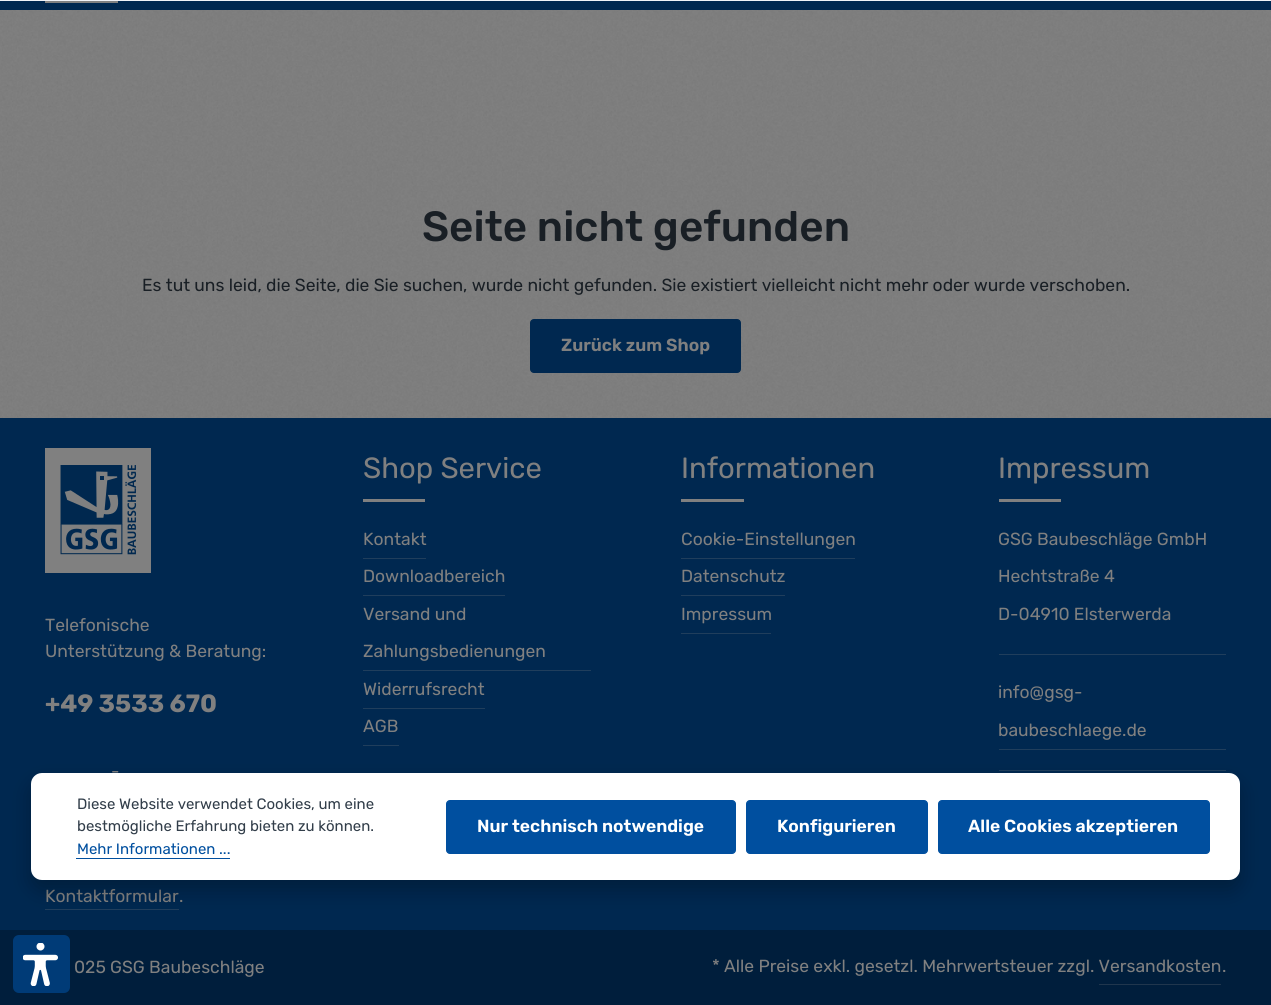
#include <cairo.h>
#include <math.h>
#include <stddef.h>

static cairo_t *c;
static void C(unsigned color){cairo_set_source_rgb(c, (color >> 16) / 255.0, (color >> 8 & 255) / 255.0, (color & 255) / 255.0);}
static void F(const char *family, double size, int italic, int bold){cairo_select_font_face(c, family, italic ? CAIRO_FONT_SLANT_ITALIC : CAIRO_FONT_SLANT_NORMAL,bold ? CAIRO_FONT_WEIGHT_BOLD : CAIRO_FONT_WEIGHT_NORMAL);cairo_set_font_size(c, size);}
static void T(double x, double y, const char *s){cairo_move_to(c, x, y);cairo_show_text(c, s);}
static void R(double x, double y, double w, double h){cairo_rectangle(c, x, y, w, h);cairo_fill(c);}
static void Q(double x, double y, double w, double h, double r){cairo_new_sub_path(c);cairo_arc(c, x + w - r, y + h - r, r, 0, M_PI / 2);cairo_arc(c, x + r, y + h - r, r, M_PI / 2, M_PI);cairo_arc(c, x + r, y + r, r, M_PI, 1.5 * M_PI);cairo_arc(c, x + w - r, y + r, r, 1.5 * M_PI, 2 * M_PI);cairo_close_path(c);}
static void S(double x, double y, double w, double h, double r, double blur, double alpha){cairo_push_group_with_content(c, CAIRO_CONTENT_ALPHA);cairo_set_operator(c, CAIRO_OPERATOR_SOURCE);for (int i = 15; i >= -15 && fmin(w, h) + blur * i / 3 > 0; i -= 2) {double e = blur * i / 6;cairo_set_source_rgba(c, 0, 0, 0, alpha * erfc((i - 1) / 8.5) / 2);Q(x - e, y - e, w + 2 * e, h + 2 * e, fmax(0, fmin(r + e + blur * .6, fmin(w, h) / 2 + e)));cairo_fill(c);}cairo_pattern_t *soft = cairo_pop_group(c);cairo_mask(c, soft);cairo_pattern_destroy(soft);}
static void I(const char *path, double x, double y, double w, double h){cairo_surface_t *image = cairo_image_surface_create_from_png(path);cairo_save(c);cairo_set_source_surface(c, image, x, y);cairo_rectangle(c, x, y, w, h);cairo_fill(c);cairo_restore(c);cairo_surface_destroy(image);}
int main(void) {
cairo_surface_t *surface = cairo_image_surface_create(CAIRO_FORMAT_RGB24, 1271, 1005);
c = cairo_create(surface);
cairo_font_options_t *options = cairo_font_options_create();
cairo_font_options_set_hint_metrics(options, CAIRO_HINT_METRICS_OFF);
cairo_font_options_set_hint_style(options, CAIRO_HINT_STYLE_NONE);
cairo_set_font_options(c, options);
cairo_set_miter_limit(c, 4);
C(0x808080);
cairo_paint(c);
I("1.png",0,10,1271,408);
C(0x002850);
R(0,1,1271,9);
C(0x808080);
R(45,1,73,2);
F("Rubik Light",42.25,0,0);
C(0x191f25);
T(422,241,"Seite nicht gefunden");
F("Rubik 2 Light",17.5,0,0);
T(142,291,"Es tut uns leid, die Seite, die Sie suchen, wurde nicht gefunden. Sie existiert vielleicht nicht mehr oder wurde verschoben.");
C(0x002850);
Q(530.5,319.5,210,53,3.5);
cairo_fill_preserve(c);
cairo_set_line_width(c,1);
cairo_stroke(c);
F("Rubik SemiBold",17.5,0,0);
C(0x808080);
T(561,351,"Zurück zum Shop");
C(0x002850);
R(0,418,1271,512);
C(0x808080);
R(45,448,106,125);
I("2.png",60,465,77,90);
F("Rubik 2 Light",17.5,0,0);
T(45,631,"Telefonische");
T(45,657,"Unterstützung & Beratung:");
F("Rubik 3 Light",25,0,0);
T(45,712,"+49 3533 670");
F("Rubik 2 Light",17.5,0,0);
T(111,777,"-");
T(45,902,"Kontaktformular");
C(0x203e5c);
R(45,909,134,1);
C(0x808080);
T(179,902,".");
F("Rubik 2 Light",29.25,0,0);
T(363,478,"Shop Service");
R(363,499,62,3);
F("Rubik 2 Light",17.5,0,0);
T(363,545,"Kontakt");
C(0x203e5c);
R(363,558,63,1);
C(0x808080);
T(363,582,"Downloadbereich");
C(0x203e5c);
R(363,595,142,1);
C(0x808080);
T(363,620,"Versand und");
T(363,657,"Zahlungsbedienungen");
C(0x203e5c);
R(363,670,228,1);
C(0x808080);
T(363,695,"Widerrufsrecht");
C(0x203e5c);
R(363,708,122,1);
C(0x808080);
T(363,732,"AGB");
C(0x203e5c);
R(363,745,36,1);
F("Rubik 2 Light",29.25,0,0);
C(0x808080);
T(681,478,"Informationen");
R(681,499,63,3);
F("Rubik 2 Light",17.5,0,0);
T(681,545,"Cookie-Einstellungen");
C(0x203e5c);
R(681,558,174,1);
C(0x808080);
T(681,582,"Datenschutz");
C(0x203e5c);
R(681,595,104,1);
C(0x808080);
T(681,620,"Impressum");
C(0x203e5c);
R(681,633,90,1);
F("Rubik 2 Light",29.25,0,0);
C(0x808080);
T(998,478,"Impressum");
R(999,499,62,3);
F("Rubik 2 Light",17.5,0,0);
T(998,545,"GSG Baubeschläge GmbH");
T(998,582,"Hechtstraße 4");
T(998,620,"D-04910 Elsterwerda");
C(0x203e5c);
R(999,654,227,1);
C(0x808080);
T(998,698,"info@gsg-");
T(998,736,"baubeschlaege.de");
C(0x203e5c);
R(999,749,227,1);
R(999,770,227,1);
C(0x001e3c);
R(0,930,1271,75);
C(0x808080);
T(74,973,"025 GSG Baubeschläge");
T(712,972,"* Alle Preise exkl. gesetzl. Mehrwertsteuer zzgl. Versandkosten");
T(1222,972,".");
C(0x20364d);
R(1099,984,122,1);
C(0xf1f3f7);
R(0,0,1271,1);
C(0x000000);
S(31,783,1209,107,11,10,.25);
C(0xffffff);
Q(31,773,1209,107,11);
cairo_fill(c);
F("Rubik 2 Light",15,0,0);
C(0x323e4a);
T(77,809,"Diese Website verwendet Cookies, um eine");
T(77,831,"bestmögliche Erfahrung bieten zu können.");
C(0x004f9f);
T(77,854,"Mehr Informationen ...");
R(76,858,154,1);
Q(446.5,800.5,289,53,3.5);
cairo_fill_preserve(c);
cairo_stroke(c);
F("Rubik SemiBold",17.5,0,0);
C(0xffffff);
T(477,832,"Nur technisch notwendige");
C(0x004f9f);
Q(746.5,800.5,181,53,3.5);
cairo_fill_preserve(c);
cairo_stroke(c);
C(0xffffff);
T(777,832,"Konfigurieren");
C(0x004f9f);
Q(938.5,800.5,271,53,3.5);
cairo_fill_preserve(c);
cairo_stroke(c);
C(0xffffff);
T(968,832,"Alle Cookies akzeptieren");
C(0x003b77);
Q(13,935,57,58,6);
cairo_fill(c);
I("3.png",23,943,35,43);
cairo_surface_write_to_png(surface, "o.png");
cairo_font_options_destroy(options);
cairo_destroy(c);
cairo_surface_destroy(surface);
return 0;
}
